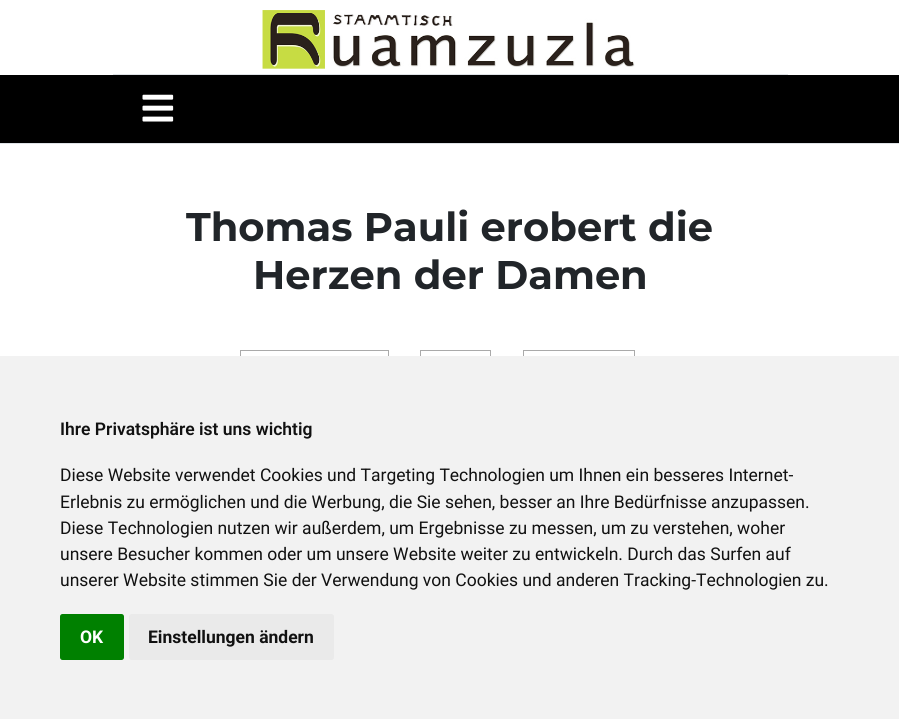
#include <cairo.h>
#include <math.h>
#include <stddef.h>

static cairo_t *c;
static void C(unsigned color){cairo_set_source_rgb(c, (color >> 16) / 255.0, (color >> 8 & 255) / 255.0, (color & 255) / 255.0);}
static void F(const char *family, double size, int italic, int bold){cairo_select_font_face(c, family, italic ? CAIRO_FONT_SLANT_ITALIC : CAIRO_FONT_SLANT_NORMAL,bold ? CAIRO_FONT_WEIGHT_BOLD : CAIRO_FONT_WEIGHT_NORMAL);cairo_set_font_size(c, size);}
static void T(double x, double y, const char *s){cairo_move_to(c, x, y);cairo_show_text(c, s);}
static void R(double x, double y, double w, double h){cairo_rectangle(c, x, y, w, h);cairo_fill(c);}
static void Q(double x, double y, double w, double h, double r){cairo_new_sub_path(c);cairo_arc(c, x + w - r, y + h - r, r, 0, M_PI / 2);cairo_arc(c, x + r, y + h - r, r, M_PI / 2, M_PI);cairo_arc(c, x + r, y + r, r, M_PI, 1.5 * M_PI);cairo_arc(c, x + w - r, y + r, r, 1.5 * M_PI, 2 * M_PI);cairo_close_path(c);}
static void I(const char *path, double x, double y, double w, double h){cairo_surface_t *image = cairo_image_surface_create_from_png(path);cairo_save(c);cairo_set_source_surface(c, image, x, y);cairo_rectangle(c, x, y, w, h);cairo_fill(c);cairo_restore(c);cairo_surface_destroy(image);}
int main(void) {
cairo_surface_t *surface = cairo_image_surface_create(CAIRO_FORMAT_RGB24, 899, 719);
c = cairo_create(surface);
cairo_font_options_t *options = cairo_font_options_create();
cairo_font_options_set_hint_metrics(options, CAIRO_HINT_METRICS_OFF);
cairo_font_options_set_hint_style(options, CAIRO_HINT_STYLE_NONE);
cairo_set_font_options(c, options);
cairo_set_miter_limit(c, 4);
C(0xffffff);
cairo_paint(c);
C(0xdee2e6);
R(113,74,675,1);
I("1.png",262,10,373,59);
C(0x000000);
R(0,75,899,68);
C(0xdee2e6);
R(0,143,899,1);
I("2.png",142,94,32,28);
F("Montserrat",40,0,1);
C(0x212529);
T(186,241,"Thomas Pauli erobert die");
T(253,289,"Herzen der Damen");
cairo_rectangle(c,240.5,350.5,148,38);
C(0xaaaaaa);
cairo_set_line_width(c,1);
cairo_stroke(c);
cairo_rectangle(c,420.5,350.5,70,38);
cairo_stroke(c);
cairo_rectangle(c,523.5,350.5,111,38);
cairo_stroke(c);
C(0xf2f2f2);
R(0,356,899,363);
F("Roboto SemiBold",17.5,0,0);
C(0x111111);
T(60,435,"Ihre Privatsphäre ist uns wichtig");
F("Roboto",17.5,0,0);
T(60,481,"Diese Website verwendet Cookies und Targeting Technologien um Ihnen ein besseres Internet-");
T(60,508,"Erlebnis zu ermöglichen und die Werbung, die Sie sehen, besser an Ihre Bedürfnisse anzupassen.");
T(60,534,"Diese Technologien nutzen wir außerdem, um Ergebnisse zu messen, um zu verstehen, woher");
T(60,560,"unsere Besucher kommen oder um unsere Website weiter zu entwickeln. Durch das Surfen auf");
T(60,586,"unserer Website stimmen Sie der Verwendung von Cookies und anderen Tracking-Technologien zu.");
C(0x008000);
Q(60,614,64,46,2.5);
cairo_fill(c);
F("Roboto",17.5,0,1);
C(0xffffff);
T(80,643,"OK");
C(0xeaeaea);
Q(129,614,205,46,2.5);
cairo_fill(c);
C(0x111111);
T(148,643,"Einstellungen ändern");
cairo_surface_write_to_png(surface, "o.png");
cairo_font_options_destroy(options);
cairo_destroy(c);
cairo_surface_destroy(surface);
return 0;
}
